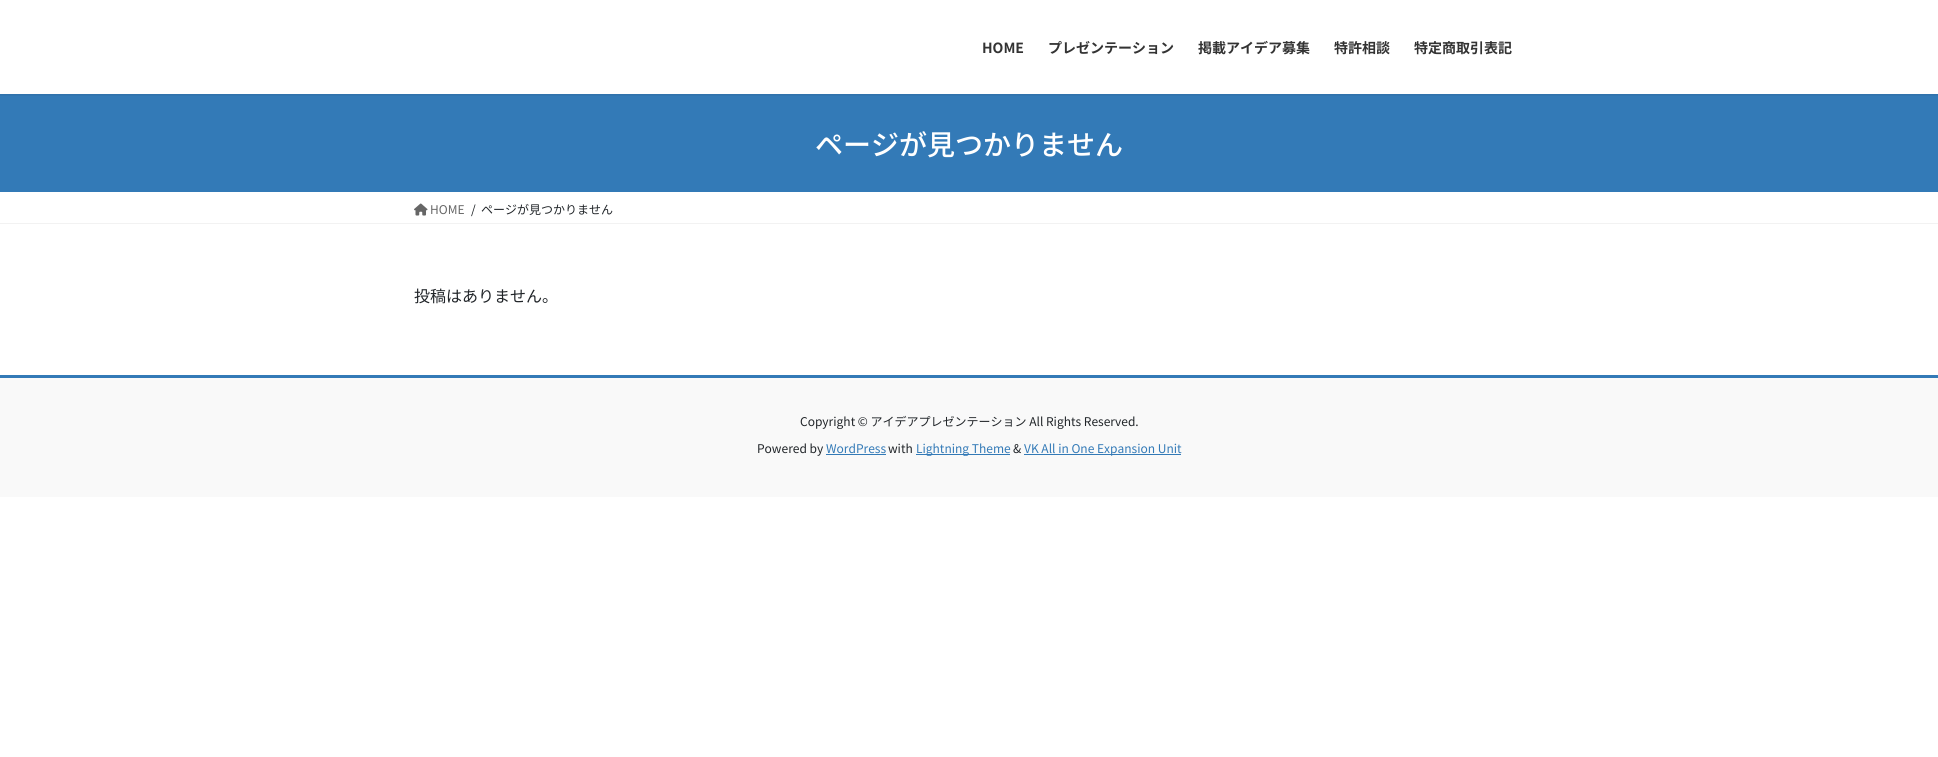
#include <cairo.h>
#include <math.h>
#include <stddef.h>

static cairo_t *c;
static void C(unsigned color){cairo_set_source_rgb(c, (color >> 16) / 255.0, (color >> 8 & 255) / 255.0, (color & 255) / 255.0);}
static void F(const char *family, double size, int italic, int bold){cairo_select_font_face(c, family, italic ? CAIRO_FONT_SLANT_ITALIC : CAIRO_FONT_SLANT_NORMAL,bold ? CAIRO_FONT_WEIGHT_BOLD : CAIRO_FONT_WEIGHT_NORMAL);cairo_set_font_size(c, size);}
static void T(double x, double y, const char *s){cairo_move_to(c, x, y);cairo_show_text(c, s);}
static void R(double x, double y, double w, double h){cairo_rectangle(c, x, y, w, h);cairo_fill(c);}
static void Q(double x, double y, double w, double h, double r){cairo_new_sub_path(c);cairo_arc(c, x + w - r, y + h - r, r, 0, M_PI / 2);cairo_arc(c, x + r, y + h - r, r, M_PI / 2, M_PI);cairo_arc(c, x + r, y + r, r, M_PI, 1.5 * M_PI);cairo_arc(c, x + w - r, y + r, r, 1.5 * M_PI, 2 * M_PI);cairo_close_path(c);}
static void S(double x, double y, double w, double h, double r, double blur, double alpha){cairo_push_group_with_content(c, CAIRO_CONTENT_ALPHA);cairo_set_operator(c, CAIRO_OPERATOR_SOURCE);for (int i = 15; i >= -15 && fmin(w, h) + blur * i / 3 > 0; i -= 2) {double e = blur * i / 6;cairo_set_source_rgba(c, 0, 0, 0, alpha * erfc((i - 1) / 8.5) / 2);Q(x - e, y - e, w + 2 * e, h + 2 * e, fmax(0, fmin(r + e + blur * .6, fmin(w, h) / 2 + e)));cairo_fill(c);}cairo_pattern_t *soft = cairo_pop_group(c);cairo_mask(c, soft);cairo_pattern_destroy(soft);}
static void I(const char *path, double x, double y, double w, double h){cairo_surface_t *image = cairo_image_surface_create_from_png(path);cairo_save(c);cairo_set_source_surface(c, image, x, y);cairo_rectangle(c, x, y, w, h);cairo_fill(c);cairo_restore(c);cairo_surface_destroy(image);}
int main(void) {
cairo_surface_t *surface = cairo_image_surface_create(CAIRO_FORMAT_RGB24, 1938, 757);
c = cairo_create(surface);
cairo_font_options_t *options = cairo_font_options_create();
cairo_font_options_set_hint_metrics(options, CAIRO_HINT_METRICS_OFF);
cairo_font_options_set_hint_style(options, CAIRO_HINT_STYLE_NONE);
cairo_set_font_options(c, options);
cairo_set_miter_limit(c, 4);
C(0xffffff);
cairo_paint(c);
C(0x337ab7);
R(0,94,1938,98);
cairo_save(c);
cairo_rectangle(c,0,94,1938,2);
cairo_clip(c);
C(0x000000);
S(0,1,1938,94,0,1.5,.1);
cairo_restore(c);
F("Noto Sans JP",14,0,1);
C(0x333333);
T(982,53,"HOME");
T(1048,53,"プレゼンテーション");
T(1198,53,"掲載アイデア募集");
T(1334,53,"特許相談");
T(1414,53,"特定商取引表記");
F("Noto Sans JP Medium",28,0,0);
C(0xffffff);
T(815,155,"ページが見つかりません");
C(0xf2f2f2);
R(0,223,1938,1);
I("1.png",414,203,14,13);
F("Noto Sans JP",12,0,0);
C(0x666666);
T(430,214,"HOME");
C(0x212529);
T(471,214,"/");
T(481,214,"ページが見つかりません");
F("Noto Sans JP",16,0,0);
T(414,302,"投稿はありません。");
C(0xf9f9f9);
R(0,378,1938,119);
C(0x337ab7);
R(0,375,1938,3);
F("Noto Sans JP",12,0,0);
C(0x212529);
T(800,426,"Copyright © アイデアプレゼンテーション All Rights Reserved.");
T(757,453,"Powered by");
C(0x337ab7);
T(826,453,"WordPress");
R(826,454,60,1);
C(0x212529);
T(888,453,"with");
C(0x337ab7);
R(916,454,94,1);
T(916,453,"Lightning Theme");
C(0x212529);
T(1013,453,"&");
C(0x337ab7);
R(1024,454,157,1);
T(1024,453,"VK All in One Expansion Unit");
cairo_surface_write_to_png(surface, "o.png");
cairo_font_options_destroy(options);
cairo_destroy(c);
cairo_surface_destroy(surface);
return 0;
}
